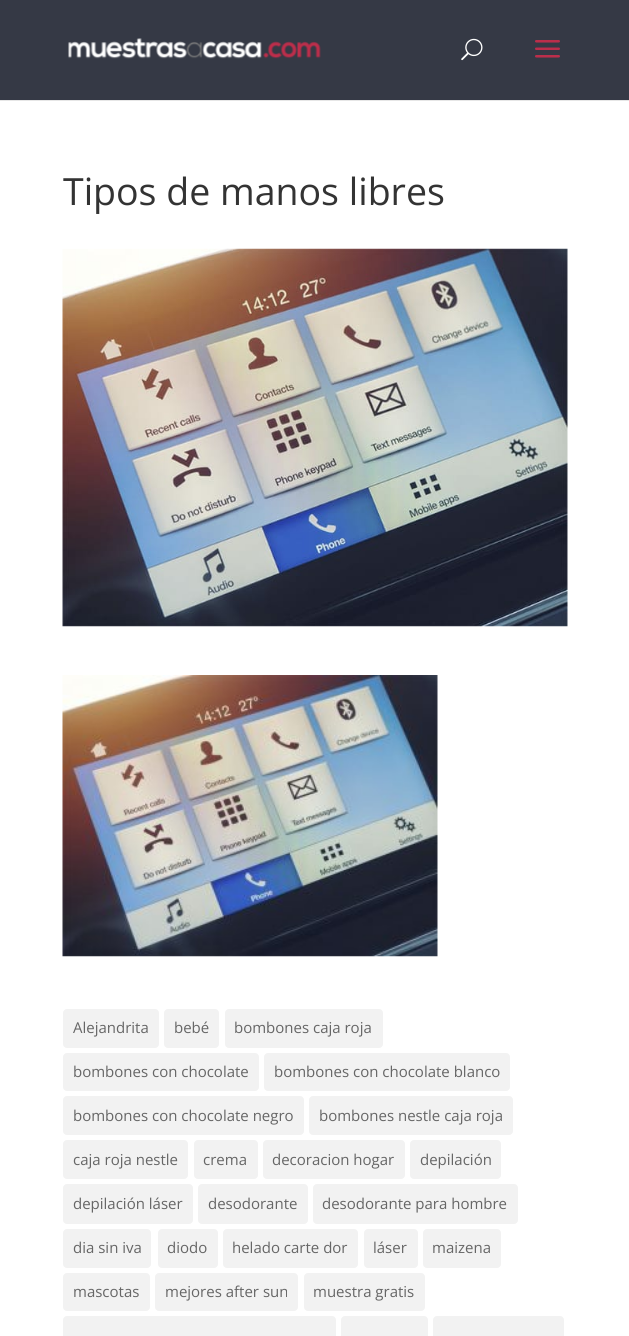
#include <cairo.h>
#include <math.h>
#include <stddef.h>

static cairo_t *c;
static void C(unsigned color){cairo_set_source_rgb(c, (color >> 16) / 255.0, (color >> 8 & 255) / 255.0, (color & 255) / 255.0);}
static void F(const char *family, double size, int italic, int bold){cairo_select_font_face(c, family, italic ? CAIRO_FONT_SLANT_ITALIC : CAIRO_FONT_SLANT_NORMAL,bold ? CAIRO_FONT_WEIGHT_BOLD : CAIRO_FONT_WEIGHT_NORMAL);cairo_set_font_size(c, size);}
static void T(double x, double y, const char *s){cairo_move_to(c, x, y);cairo_show_text(c, s);}
static void R(double x, double y, double w, double h){cairo_rectangle(c, x, y, w, h);cairo_fill(c);}
static void Q(double x, double y, double w, double h, double r){cairo_new_sub_path(c);cairo_arc(c, x + w - r, y + h - r, r, 0, M_PI / 2);cairo_arc(c, x + r, y + h - r, r, M_PI / 2, M_PI);cairo_arc(c, x + r, y + r, r, M_PI, 1.5 * M_PI);cairo_arc(c, x + w - r, y + r, r, 1.5 * M_PI, 2 * M_PI);cairo_close_path(c);}
static void I(const char *path, double x, double y, double w, double h){cairo_surface_t *image = cairo_image_surface_create_from_png(path);cairo_save(c);cairo_set_source_surface(c, image, x, y);cairo_rectangle(c, x, y, w, h);cairo_fill(c);cairo_restore(c);cairo_surface_destroy(image);}
int main(void) {
cairo_surface_t *surface = cairo_image_surface_create(CAIRO_FORMAT_RGB24, 629, 1336);
c = cairo_create(surface);
cairo_font_options_t *options = cairo_font_options_create();
cairo_font_options_set_hint_metrics(options, CAIRO_HINT_METRICS_OFF);
cairo_font_options_set_hint_style(options, CAIRO_HINT_STYLE_NONE);
cairo_set_font_options(c, options);
cairo_set_miter_limit(c, 4);
C(0xffffff);
cairo_paint(c);
C(0xe6e6e6);
R(0,100,629,1);
C(0x353945);
R(0,0,629,100);
I("1.png",68,38,253,21);
I("2.png",461,38,22,23);
I("3.png",535,40,25,18);
F("Open Sans",37.5,0,0);
C(0x333333);
T(63,205,"Tipos de manos libres");
I("4.png",62,248,506,379);
I("5.png",62,675,376,282);
C(0xf2f2f2);
Q(63,1009,96,39,4);
cairo_fill(c);
F("Open Sans",15,0,0);
C(0x666666);
T(73,1033,"Alejandrita");
C(0xf2f2f2);
Q(164,1009,55,39,4);
cairo_fill(c);
C(0x666666);
T(174,1033,"bebé");
C(0xf2f2f2);
Q(225,1009,158,39,4);
cairo_fill(c);
C(0x666666);
T(234,1033,"bombones caja roja");
C(0xf2f2f2);
Q(63,1053,196,38,4);
cairo_fill(c);
C(0x666666);
T(73,1077,"bombones con chocolate");
C(0xf2f2f2);
Q(264,1053,246,38,4);
cairo_fill(c);
C(0x666666);
T(274,1077,"bombones con chocolate blanco");
C(0xf2f2f2);
Q(63,1096,241,39,4);
cairo_fill(c);
C(0x666666);
T(73,1121,"bombones con chocolate negro");
C(0xf2f2f2);
Q(309,1096,204,39,4);
cairo_fill(c);
C(0x666666);
T(319,1121,"bombones nestle caja roja");
C(0xf2f2f2);
Q(63,1140,125,39,4);
cairo_fill(c);
C(0x666666);
T(73,1165,"caja roja nestle");
C(0xf2f2f2);
Q(194,1140,64,39,4);
cairo_fill(c);
C(0x666666);
T(203,1165,"crema");
C(0xf2f2f2);
Q(263,1140,142,39,4);
cairo_fill(c);
C(0x666666);
T(272,1165,"decoracion hogar");
C(0xf2f2f2);
Q(410,1140,91,39,4);
cairo_fill(c);
C(0x666666);
T(420,1165,"depilación");
C(0xf2f2f2);
Q(63,1184,130,40,4);
cairo_fill(c);
C(0x666666);
T(73,1209,"depilación láser");
C(0xf2f2f2);
Q(198,1184,110,40,4);
cairo_fill(c);
C(0x666666);
T(208,1209,"desodorante");
C(0xf2f2f2);
Q(313,1184,205,40,4);
cairo_fill(c);
C(0x666666);
T(322,1209,"desodorante para hombre");
C(0xf2f2f2);
Q(63,1229,88,39,4);
cairo_fill(c);
C(0x666666);
T(73,1253,"dia sin iva");
C(0xf2f2f2);
Q(158,1229,60,39,4);
cairo_fill(c);
C(0x666666);
T(167,1253,"diodo");
C(0xf2f2f2);
Q(223,1229,135,39,4);
cairo_fill(c);
C(0x666666);
T(232,1253,"helado carte dor");
C(0xf2f2f2);
Q(364,1229,54,39,4);
cairo_fill(c);
C(0x666666);
T(373,1253,"láser");
C(0xf2f2f2);
Q(423,1229,78,39,4);
cairo_fill(c);
C(0x666666);
T(432,1253,"maizena");
C(0xf2f2f2);
Q(63,1273,87,38,4);
cairo_fill(c);
C(0x666666);
T(73,1297,"mascotas");
C(0xf2f2f2);
Q(155,1273,143,38,4);
cairo_fill(c);
C(0x666666);
T(165,1297,"mejores after sun");
C(0xf2f2f2);
Q(304,1273,121,38,4);
cairo_fill(c);
C(0x666666);
T(313,1297,"muestra gratis");
C(0xf2f2f2);
Q(63,1316,273,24,4);
cairo_fill(c);
Q(341,1316,87,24,4);
cairo_fill(c);
Q(433,1316,131,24,4);
cairo_fill(c);
cairo_surface_write_to_png(surface, "o.png");
cairo_font_options_destroy(options);
cairo_destroy(c);
cairo_surface_destroy(surface);
return 0;
}
